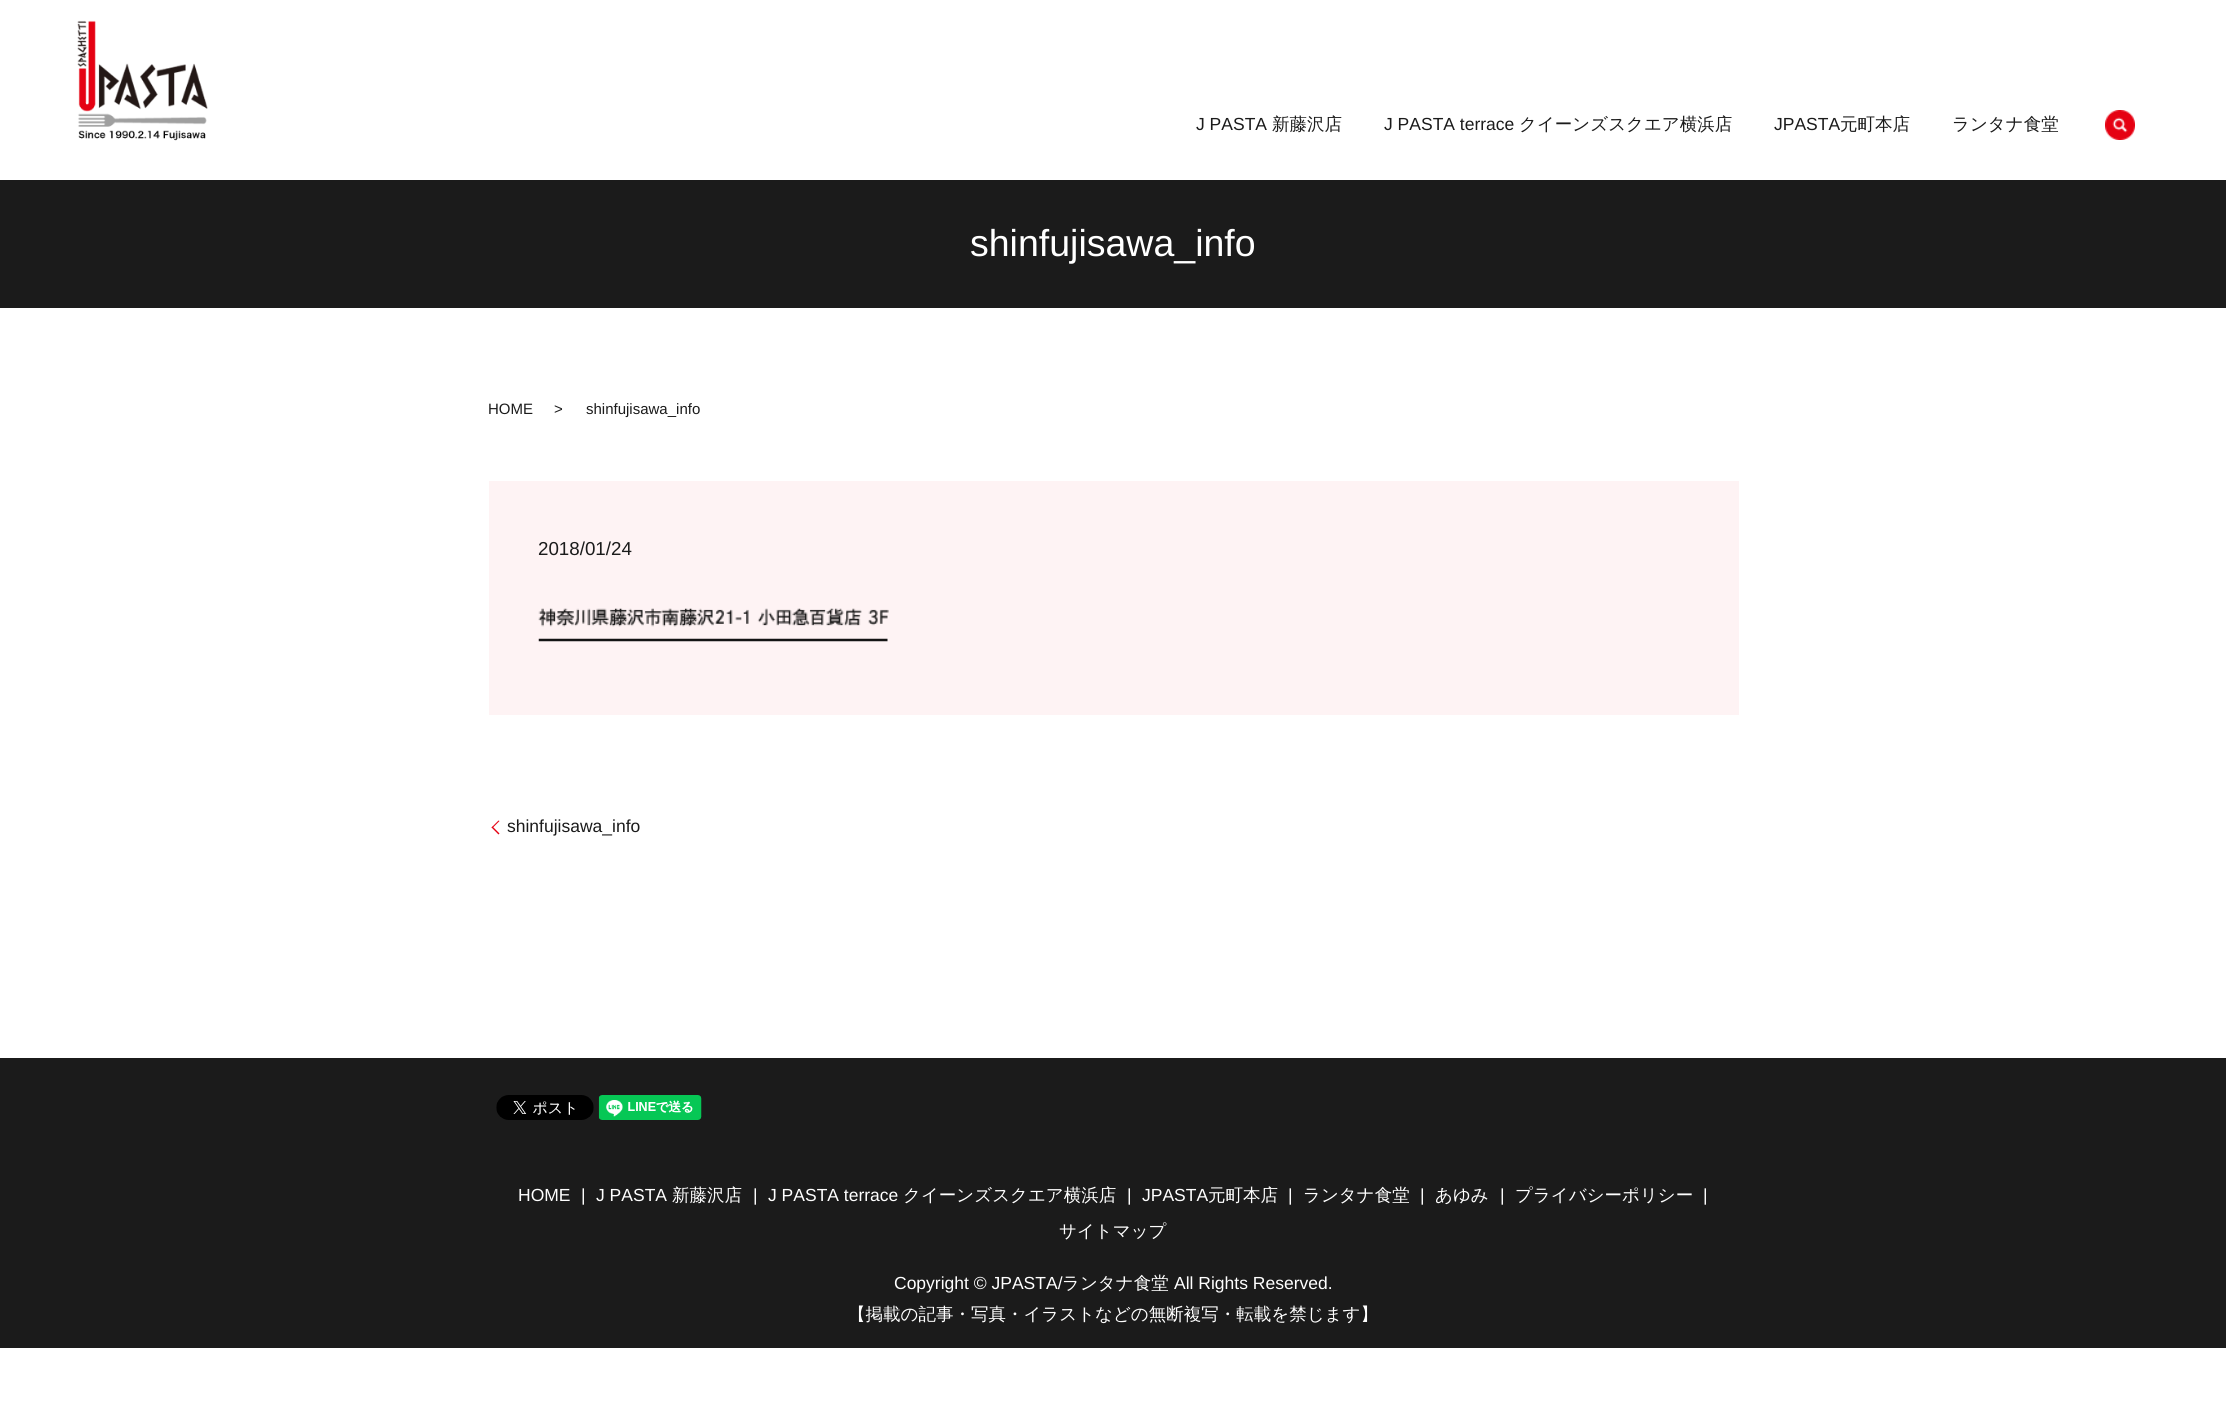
#include <cairo.h>
#include <math.h>
#include <stddef.h>

static cairo_t *c;
static void C(unsigned color){cairo_set_source_rgb(c, (color >> 16) / 255.0, (color >> 8 & 255) / 255.0, (color & 255) / 255.0);}
static void F(const char *family, double size, int italic, int bold){cairo_select_font_face(c, family, italic ? CAIRO_FONT_SLANT_ITALIC : CAIRO_FONT_SLANT_NORMAL,bold ? CAIRO_FONT_WEIGHT_BOLD : CAIRO_FONT_WEIGHT_NORMAL);cairo_set_font_size(c, size);}
static void T(double x, double y, const char *s){cairo_move_to(c, x, y);cairo_show_text(c, s);}
static void R(double x, double y, double w, double h){cairo_rectangle(c, x, y, w, h);cairo_fill(c);}
static void I(const char *path, double x, double y, double w, double h){cairo_surface_t *image = cairo_image_surface_create_from_png(path);cairo_save(c);cairo_set_source_surface(c, image, x, y);cairo_rectangle(c, x, y, w, h);cairo_fill(c);cairo_restore(c);cairo_surface_destroy(image);}
int main(void) {
cairo_surface_t *surface = cairo_image_surface_create(CAIRO_FORMAT_RGB24, 2226, 1417);
c = cairo_create(surface);
cairo_font_options_t *options = cairo_font_options_create();
cairo_font_options_set_hint_metrics(options, CAIRO_HINT_METRICS_OFF);
cairo_font_options_set_hint_style(options, CAIRO_HINT_STYLE_NONE);
cairo_set_font_options(c, options);
cairo_set_miter_limit(c, 4);
C(0xffffff);
cairo_paint(c);
I("1.png",77,20,131,121);
F("Liberation Sans",17.5,0,0);
C(0x1b1b1b);
T(1196,130,"J PASTA");
F("WenQuanYi Zen Hei Medium",17.5,0,0);
T(1272,130,"新藤沢店");
F("Liberation Sans",17.5,0,0);
T(1384,130,"J PASTA terrace");
F("WenQuanYi Zen Hei Medium",17.5,0,0);
T(1519,130,"クイーンズスクエア横浜店");
F("Liberation Sans",17.5,0,0);
T(1774,130,"JPASTA");
F("WenQuanYi Zen Hei Medium",17.5,0,0);
T(1840,130,"元町本店");
T(1952,130,"ランタナ食堂");
I("2.png",2105,110,30,30);
R(0,180,2226,128);
F("Liberation Sans",37.5,0,0);
C(0xffffff);
T(970,256,"shinfujisawa_info");
F("Liberation Sans",15,0,0);
C(0x1b1b1b);
T(488,414,"HOME");
T(554,414,">");
T(586,414,"shinfujisawa_info");
C(0xfef3f4);
R(489,481,1250,234);
F("Liberation Sans",18.75,0,0);
C(0x1b1b1b);
T(538,555,"2018/01/24");
I("3.png",538,608,351,34);
C(0xe50112);
cairo_new_path(c);
cairo_move_to(c,491.5,827.5);
cairo_line_to(c,498.5,820.5);
cairo_line_to(c,499.5,821);
cairo_line_to(c,492.5,828);
cairo_close_path(c);
cairo_fill(c);
F("Liberation Sans",17.5,0,0);
C(0x1b1b1b);
T(507,832,"shinfujisawa_info");
C(0xe50112);
cairo_new_path(c);
cairo_move_to(c,498.5,834.5);
cairo_line_to(c,491.5,827.5);
cairo_line_to(c,492.5,826.5);
cairo_line_to(c,499.5,833.5);
cairo_close_path(c);
cairo_fill(c);
C(0x1b1b1b);
R(0,1058,2226,290);
I("4.png",496,1095,98,25);
I("5.png",598,1095,104,25);
C(0xffffff);
T(518,1201,"HOME");
T(581,1201,"|");
T(596,1201,"J PASTA");
F("WenQuanYi Zen Hei Medium",17.5,0,0);
T(672,1201,"新藤沢店");
F("Liberation Sans",17.5,0,0);
T(753,1201,"|");
T(768,1201,"J PASTA terrace");
F("WenQuanYi Zen Hei Medium",17.5,0,0);
T(903,1201,"クイーンズスクエア横浜店");
F("Liberation Sans",17.5,0,0);
T(1127,1201,"|");
T(1142,1201,"JPASTA");
F("WenQuanYi Zen Hei Medium",17.5,0,0);
T(1208,1201,"元町本店");
F("Liberation Sans",17.5,0,0);
T(1288,1201,"|");
F("WenQuanYi Zen Hei Medium",17.5,0,0);
T(1303,1201,"ランタナ食堂");
F("Liberation Sans",17.5,0,0);
T(1420,1201,"|");
F("WenQuanYi Zen Hei Medium",17.5,0,0);
T(1435,1201,"あゆみ");
F("Liberation Sans",17.5,0,0);
T(1500,1201,"|");
F("WenQuanYi Zen Hei Medium",17.5,0,0);
T(1515,1201,"プライバシーポリシー");
F("Liberation Sans",17.5,0,0);
T(1703,1201,"|");
F("WenQuanYi Zen Hei Medium",17.5,0,0);
T(1059,1237,"サイトマップ");
F("Liberation Sans",17.5,0,0);
T(894,1289,"Copyright © JPASTA/");
F("WenQuanYi Zen Hei Medium",17.5,0,0);
T(1062,1289,"ランタナ食堂");
F("Liberation Sans",17.5,0,0);
T(1174,1289,"All Rights Reserved.");
F("WenQuanYi Zen Hei Medium",17.5,0,0);
T(848,1320,"【掲載の記事・写真・イラストなどの無断複写・転載を禁じます】");
cairo_surface_write_to_png(surface, "o.png");
cairo_font_options_destroy(options);
cairo_destroy(c);
cairo_surface_destroy(surface);
return 0;
}
